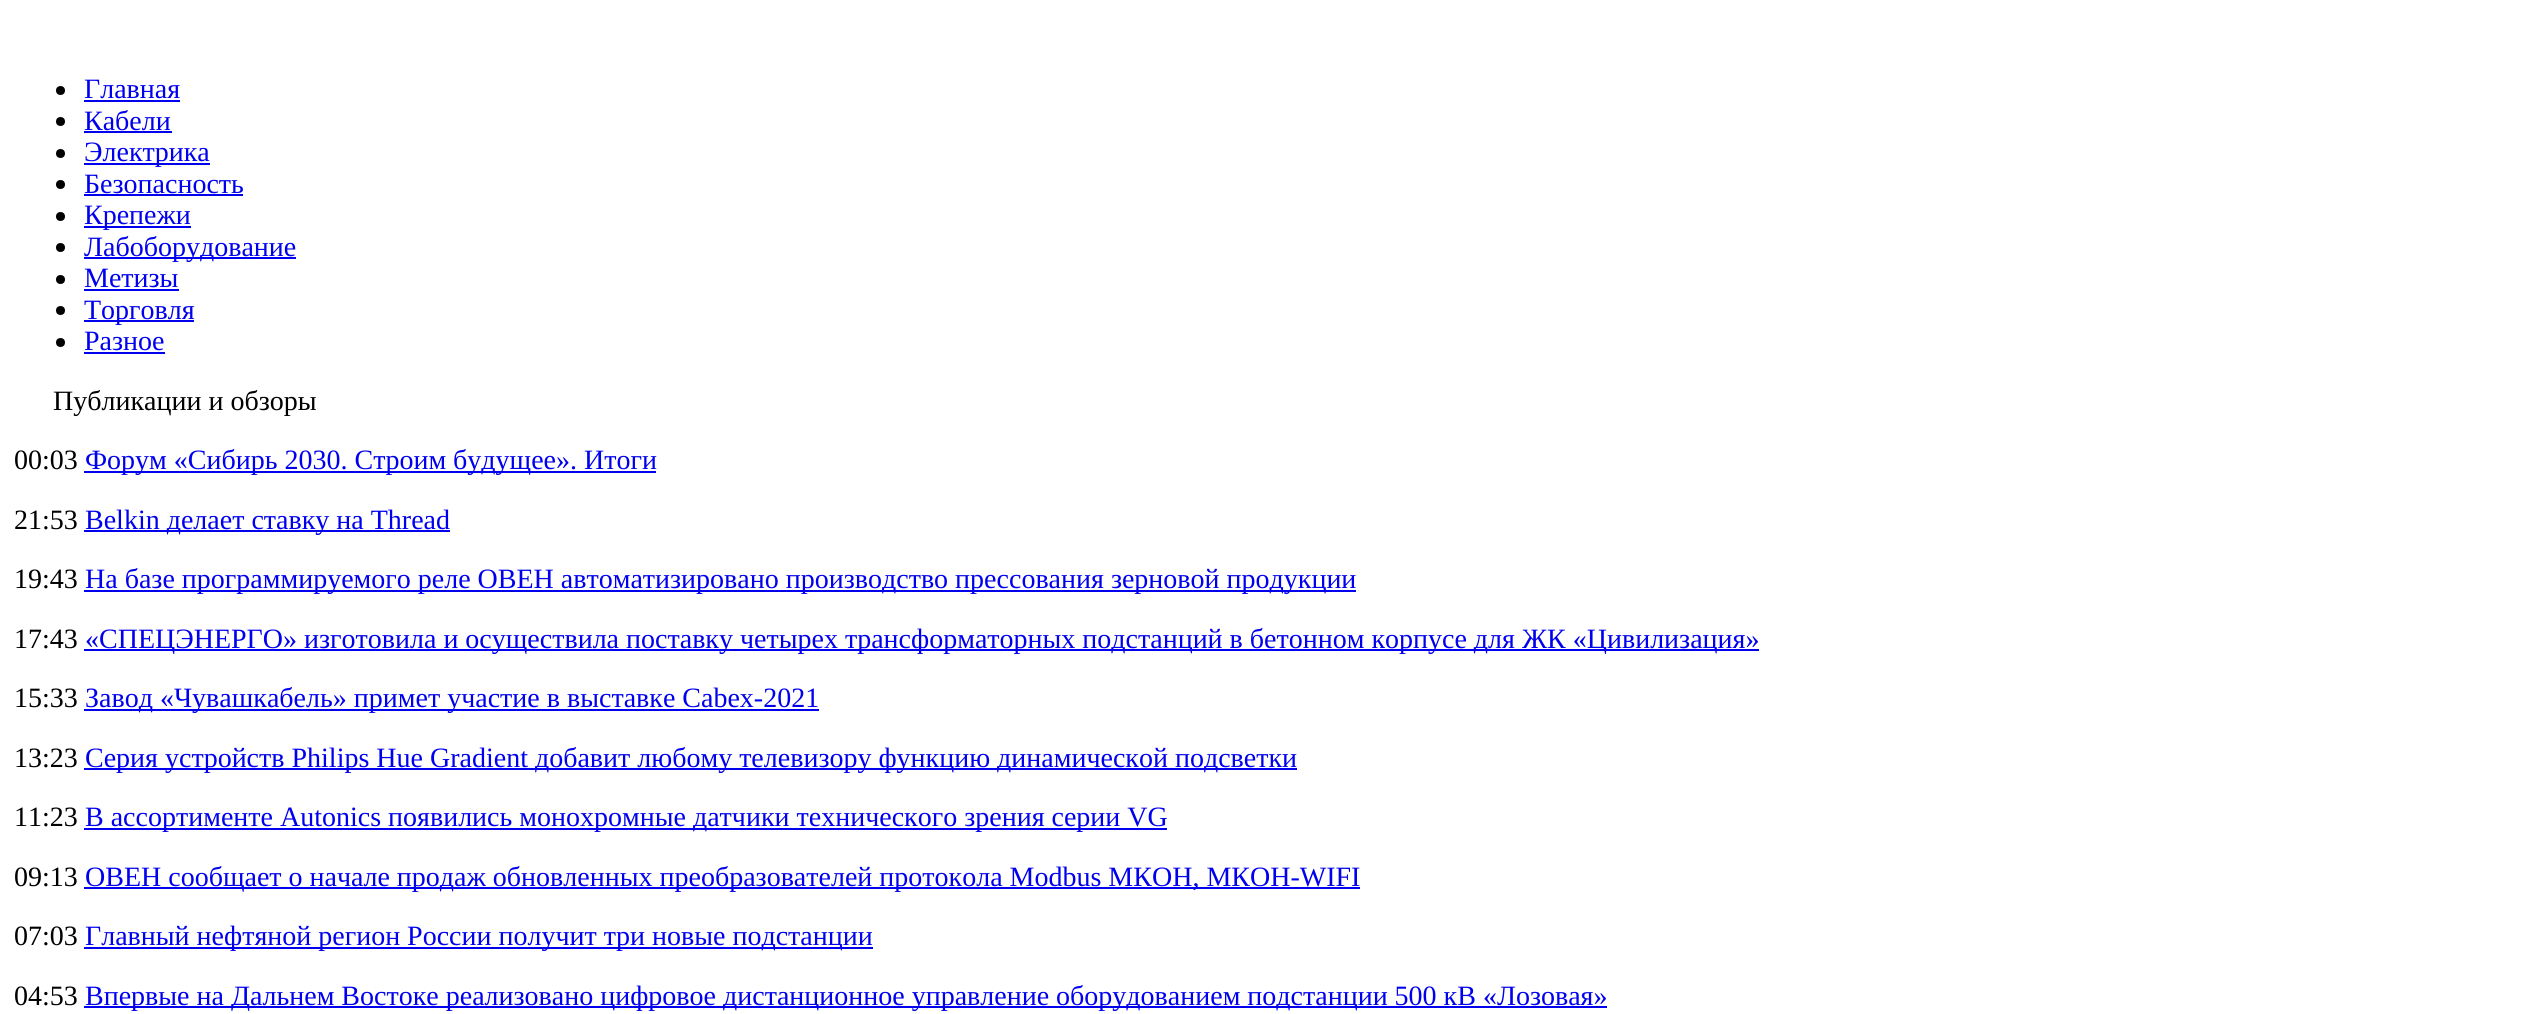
#include <cairo.h>
#include <math.h>
#include <stddef.h>

static cairo_t *c;
static void C(unsigned color){cairo_set_source_rgb(c, (color >> 16) / 255.0, (color >> 8 & 255) / 255.0, (color & 255) / 255.0);}
static void F(const char *family, double size, int italic, int bold){cairo_select_font_face(c, family, italic ? CAIRO_FONT_SLANT_ITALIC : CAIRO_FONT_SLANT_NORMAL,bold ? CAIRO_FONT_WEIGHT_BOLD : CAIRO_FONT_WEIGHT_NORMAL);cairo_set_font_size(c, size);}
static void T(double x, double y, const char *s){cairo_move_to(c, x, y);cairo_show_text(c, s);}
static void R(double x, double y, double w, double h){cairo_rectangle(c, x, y, w, h);cairo_fill(c);}
int main(void) {
cairo_surface_t *surface = cairo_image_surface_create(CAIRO_FORMAT_RGB24, 2536, 1014);
c = cairo_create(surface);
cairo_font_options_t *options = cairo_font_options_create();
cairo_font_options_set_hint_metrics(options, CAIRO_HINT_METRICS_OFF);
cairo_font_options_set_hint_style(options, CAIRO_HINT_STYLE_NONE);
cairo_set_font_options(c, options);
cairo_set_miter_limit(c, 4);
C(0xffffff);
cairo_paint(c);
C(0x000000);
cairo_arc(c,60.5,90.5,4.5,0,2 * M_PI);
cairo_fill(c);
F("Liberation Serif",28,0,0);
C(0x0000ee);
T(84,98,"Главная");
R(84,100,96,2);
C(0x000000);
cairo_new_path(c);
cairo_arc(c,60.5,121.5,4.5,0,2 * M_PI);
cairo_fill(c);
C(0x0000ee);
T(84,130,"Кабели");
R(84,131,88,2);
C(0x000000);
cairo_new_path(c);
cairo_arc(c,60.5,153.5,4.5,0,2 * M_PI);
cairo_fill(c);
C(0x0000ee);
R(84,163,126,2);
T(84,161,"Электрика");
C(0x000000);
cairo_new_path(c);
cairo_arc(c,60.5,184.5,4.5,0,2 * M_PI);
cairo_fill(c);
C(0x0000ee);
T(84,193,"Безопасность");
R(84,194,159,2);
C(0x000000);
cairo_new_path(c);
cairo_arc(c,60.5,216.5,4.5,0,2 * M_PI);
cairo_fill(c);
C(0x0000ee);
R(84,226,107,2);
T(84,224,"Крепежи");
C(0x000000);
cairo_new_path(c);
cairo_arc(c,60.5,247.5,4.5,0,2 * M_PI);
cairo_fill(c);
C(0x0000ee);
R(84,257,212,2);
T(84,256,"Лабоборудование");
C(0x000000);
cairo_new_path(c);
cairo_arc(c,60.5,279.5,4.5,0,2 * M_PI);
cairo_fill(c);
C(0x0000ee);
T(84,287,"Метизы");
R(84,289,95,2);
C(0x000000);
cairo_new_path(c);
cairo_arc(c,60.5,310.5,4.5,0,2 * M_PI);
cairo_fill(c);
C(0x0000ee);
R(84,320,110,2);
T(84,319,"Торговля");
C(0x000000);
cairo_new_path(c);
cairo_arc(c,60.5,342.5,4.5,0,2 * M_PI);
cairo_fill(c);
C(0x0000ee);
T(84,350,"Разное");
R(84,352,81,2);
C(0x000000);
T(53,410,"Публикации и обзоры");
T(14,469,"00:03");
C(0x0000ee);
R(84,471,572,2);
T(85,469,"Форум «Сибирь 2030. Строим будущее». Итоги");
C(0x000000);
T(14,529,"21:53");
C(0x0000ee);
R(84,530,366,2);
T(85,529,"Belkin делает ставку на Thread");
C(0x000000);
T(14,588,"19:43");
C(0x0000ee);
R(84,590,1272,2);
T(85,588,"На базе программируемого реле ОВЕН автоматизировано производство прессования зерновой продукции");
C(0x000000);
T(14,648,"17:43");
C(0x0000ee);
R(84,649,1675,2);
T(85,648,"«СПЕЦЭНЕРГО» изготовила и осуществила поставку четырех трансформаторных подстанций в бетонном корпусе для ЖК «Цивилизация»");
C(0x000000);
T(14,707,"15:33");
C(0x0000ee);
R(84,709,735,2);
T(85,707,"Завод «Чувашкабель» примет участие в выставке Cabex-2021");
C(0x000000);
T(14,767,"13:23");
C(0x0000ee);
R(84,768,1213,2);
T(85,767,"Серия устройств Philips Hue Gradient добавит любому телевизору функцию динамической подсветки");
C(0x000000);
T(14,826,"11:23");
C(0x0000ee);
R(84,828,1083,2);
T(85,826,"В ассортименте Autonics появились монохромные датчики технического зрения серии VG");
C(0x000000);
T(14,886,"09:13");
C(0x0000ee);
R(84,887,1276,2);
T(85,886,"ОВЕН сообщает о начале продаж обновленных преобразователей протокола Modbus МКОН, МКОН-WIFI");
C(0x000000);
T(14,945,"07:03");
C(0x0000ee);
R(84,947,789,2);
T(85,945,"Главный нефтяной регион России получит три новые подстанции");
C(0x000000);
T(14,1005,"04:53");
C(0x0000ee);
R(84,1006,1523,2);
T(85,1005,"Впервые на Дальнем Востоке реализовано цифровое дистанционное управление оборудованием подстанции 500 кВ «Лозовая»");
cairo_surface_write_to_png(surface, "o.png");
cairo_font_options_destroy(options);
cairo_destroy(c);
cairo_surface_destroy(surface);
return 0;
}
